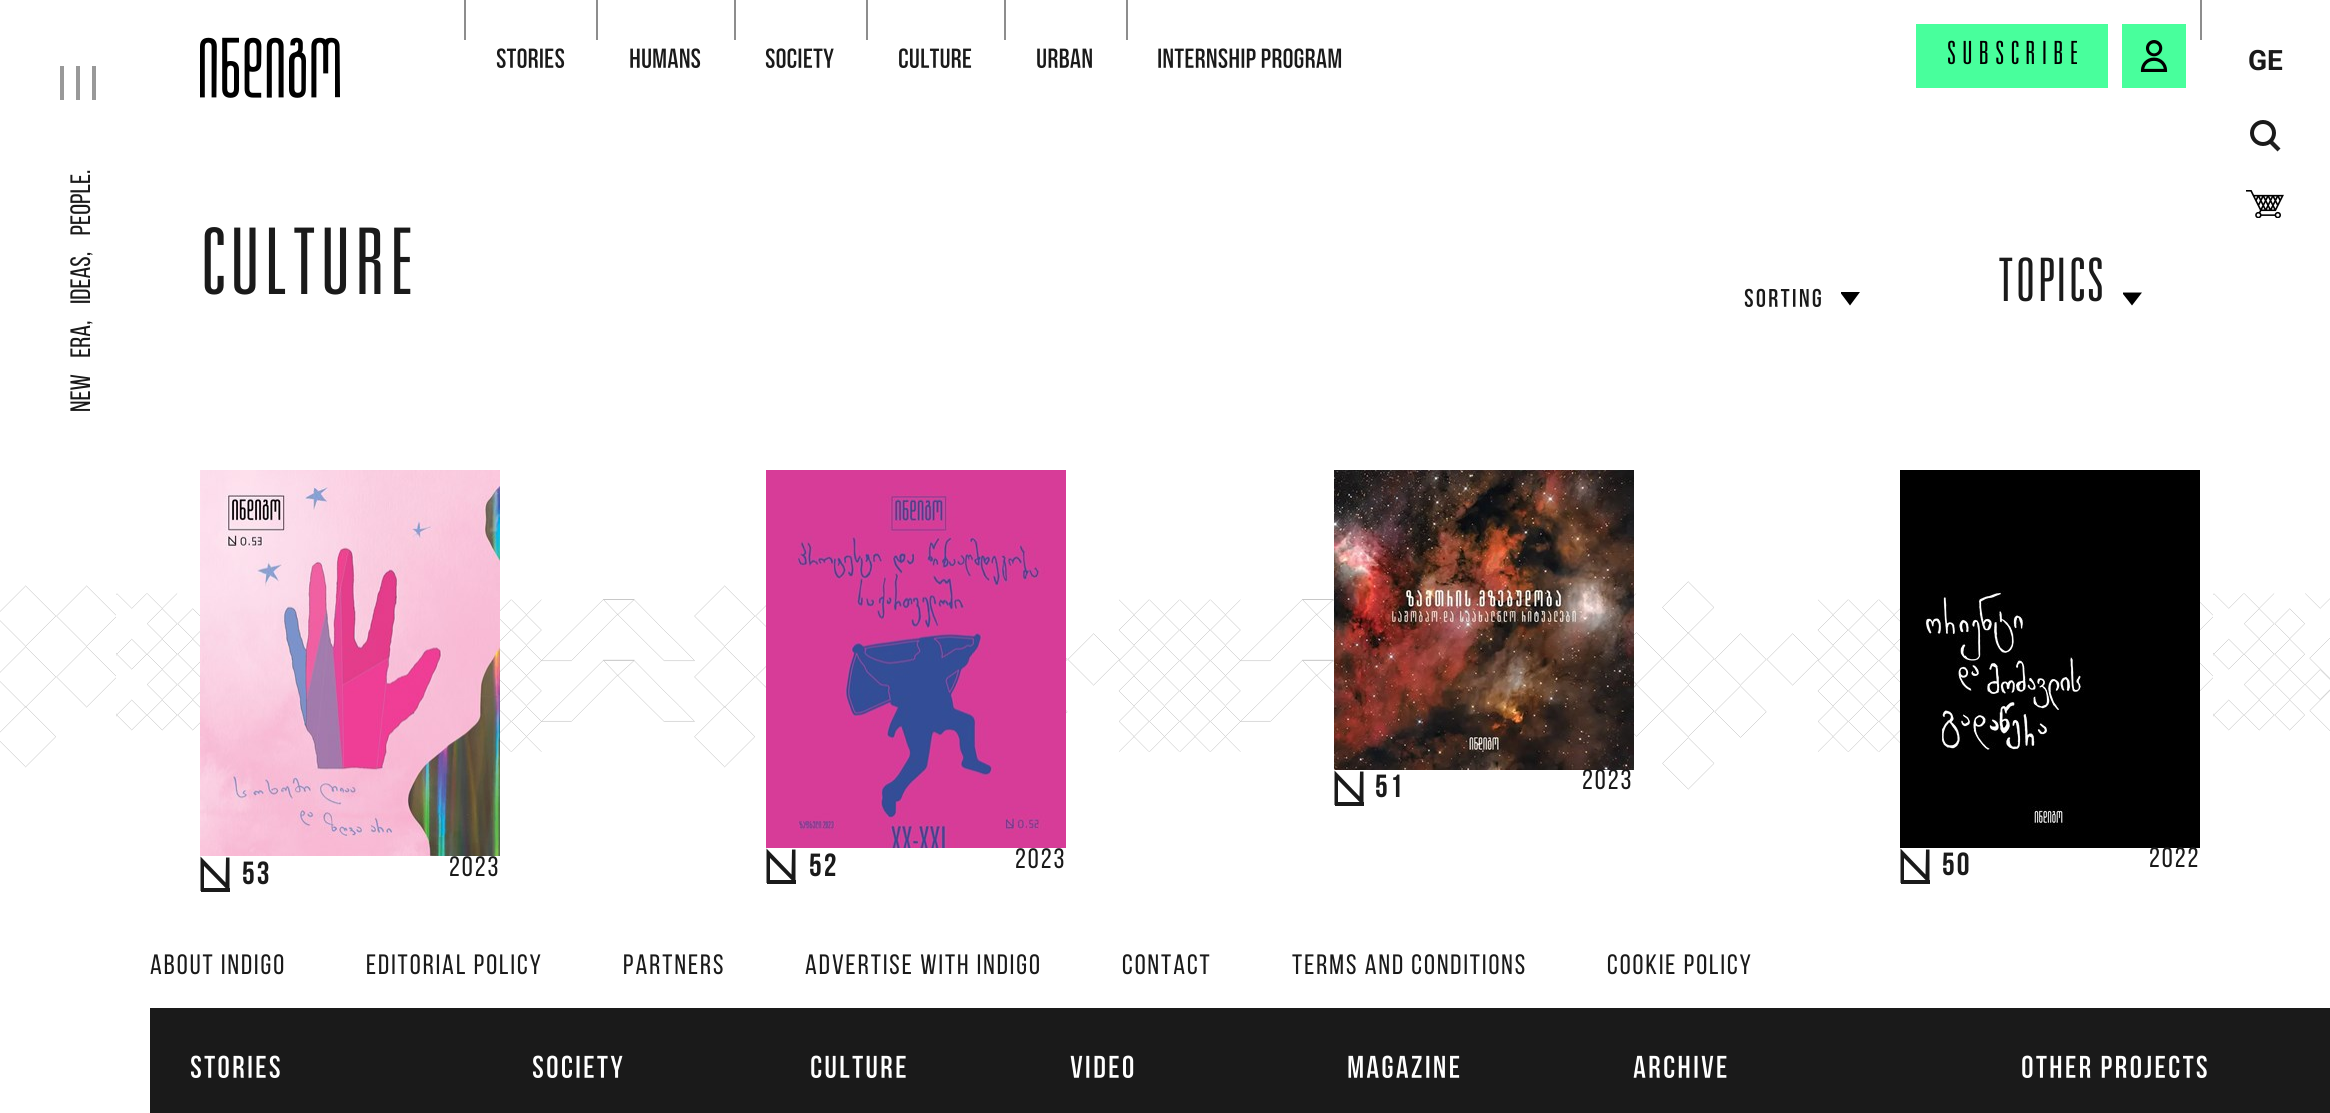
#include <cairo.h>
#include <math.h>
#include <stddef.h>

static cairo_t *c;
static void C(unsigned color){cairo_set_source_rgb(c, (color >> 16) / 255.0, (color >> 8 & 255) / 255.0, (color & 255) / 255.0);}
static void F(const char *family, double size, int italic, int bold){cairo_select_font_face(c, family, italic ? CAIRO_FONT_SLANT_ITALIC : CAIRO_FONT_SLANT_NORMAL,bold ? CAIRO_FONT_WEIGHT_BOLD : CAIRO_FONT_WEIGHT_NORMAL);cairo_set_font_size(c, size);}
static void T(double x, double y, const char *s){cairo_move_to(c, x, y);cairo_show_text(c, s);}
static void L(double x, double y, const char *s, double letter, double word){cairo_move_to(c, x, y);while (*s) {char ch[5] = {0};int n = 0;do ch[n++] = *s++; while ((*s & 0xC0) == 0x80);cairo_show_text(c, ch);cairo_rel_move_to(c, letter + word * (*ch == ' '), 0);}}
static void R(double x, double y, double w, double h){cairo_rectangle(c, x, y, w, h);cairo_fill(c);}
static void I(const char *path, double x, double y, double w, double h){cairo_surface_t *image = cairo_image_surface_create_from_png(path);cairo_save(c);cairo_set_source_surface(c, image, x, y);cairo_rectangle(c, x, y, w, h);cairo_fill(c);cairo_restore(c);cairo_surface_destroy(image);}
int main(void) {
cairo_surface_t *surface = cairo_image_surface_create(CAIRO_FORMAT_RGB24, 2330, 1113);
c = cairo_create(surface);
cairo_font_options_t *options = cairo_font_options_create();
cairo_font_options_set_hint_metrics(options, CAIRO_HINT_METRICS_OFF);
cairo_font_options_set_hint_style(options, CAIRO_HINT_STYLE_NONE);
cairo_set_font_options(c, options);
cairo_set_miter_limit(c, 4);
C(0xffffff);
cairo_paint(c);
C(0x000000);
R(200,37,140,61);
I("1.png",196,0,148,120);
C(0x8d8d8d);
R(464,0,2,40);
F("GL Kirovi",28,0,1);
C(0x1a1a1a);
T(496,68,"STORIES");
C(0x8d8d8d);
R(596,0,2,40);
C(0x1a1a1a);
T(629,68,"HUMANS");
C(0x8d8d8d);
R(734,0,2,40);
C(0x1a1a1a);
T(765,68,"SOCIETY");
C(0x8d8d8d);
R(866,0,2,40);
C(0x1a1a1a);
T(898,68,"CULTURE");
C(0x8d8d8d);
R(1004,0,2,40);
C(0x1a1a1a);
T(1036,68,"URBAN");
C(0x8d8d8d);
R(1126,0,2,40);
C(0x1a1a1a);
T(1157,68,"INTERNSHIP PROGRAM");
C(0x48ff9c);
R(1916,24,192,64);
F("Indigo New",32,0,0);
C(0x000000);
L(1947,64,"SUBSCRIBE",6,0);
C(0x48ff9c);
R(2122,24,64,64);
I("2.png",2140,40,28,32);
C(0x8d8d8d);
R(2200,0,2,40);
F("Roboto",28,0,1);
C(0x1a1a1a);
T(2248,70,"GE");
F("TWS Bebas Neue",28,0,0);
cairo_save(c);
cairo_translate(c,90,412);
cairo_rotate(c,-90 * M_PI / 180);
L(0,0,"NEW ERA, IDEAS, PEOPLE.",0,12);
cairo_restore(c);
C(0x999999);
R(60,66,4,34);
R(76,66,4,34);
R(92,66,4,34);
C(0x212121);
cairo_new_path(c);
cairo_move_to(c,2256.5,124.5);
cairo_line_to(c,2280.5,148.5);
cairo_line_to(c,2277.5,151.5);
cairo_line_to(c,2253.5,127.5);
cairo_close_path(c);
cairo_fill(c);
C(0xffffff);
cairo_arc(c,2263,133,11,0,2 * M_PI);
cairo_fill_preserve(c);
C(0x1a1a1a);
cairo_set_line_width(c,4);
cairo_stroke(c);
I("3.png",2246,190,38,28);
F("Indigo New",92,0,0);
L(200,294,"CULTURE",4,0);
F("GL Kirovi",26,0,1);
L(1744,307,"SORTING",2,0);
C(0x000000);
cairo_new_path(c);
cairo_move_to(c,1850,305.5);
cairo_line_to(c,1841,293.5);
cairo_line_to(c,1841,292);
cairo_line_to(c,1860,292);
cairo_close_path(c);
cairo_fill(c);
F("Indigo New",60,0,0);
C(0x1a1a1a);
L(1998,301,"TOPICS",2,0);
C(0x000000);
cairo_new_path(c);
cairo_move_to(c,2132,305.5);
cairo_line_to(c,2142,292.5);
cairo_line_to(c,2123,292.5);
cairo_line_to(c,2123,294);
cairo_close_path(c);
cairo_fill(c);
I("4.png",0,581,2330,209);
I("5.png",1334,470,300,300);
C(0x1a1a1a);
cairo_new_path(c);
cairo_move_to(c,1334.5,804.5);
cairo_line_to(c,1334.5,770.5);
cairo_line_to(c,1359.5,796.5);
cairo_line_to(c,1360,771.5);
cairo_line_to(c,1363.5,771.5);
cairo_line_to(c,1363.5,805.5);
cairo_line_to(c,1363,805.5);
cairo_line_to(c,1338,780);
cairo_line_to(c,1338,805);
cairo_line_to(c,1334.5,805);
cairo_close_path(c);
cairo_fill(c);
R(1335,802,29,4);
F("TWS Bebas Neue",32,0,1);
L(1375,797,"51",2,0);
F("TWS Bebas Neue",28,0,0);
L(1582,789,"2023",2,0);
I("6.png",200,470,300,386);
cairo_new_path(c);
cairo_move_to(c,200.5,890.5);
cairo_line_to(c,200.5,856.5);
cairo_line_to(c,225.5,882.5);
cairo_line_to(c,226,857.5);
cairo_line_to(c,229.5,857.5);
cairo_line_to(c,229.5,891.5);
cairo_line_to(c,229,891.5);
cairo_line_to(c,204,866);
cairo_line_to(c,204,891);
cairo_line_to(c,200.5,891);
cairo_close_path(c);
cairo_fill(c);
R(201,888,29,4);
F("TWS Bebas Neue",32,0,1);
L(242,884,"53",2,0);
F("TWS Bebas Neue",28,0,0);
L(449,876,"2023",2,0);
I("7.png",766,470,300,378);
cairo_new_path(c);
cairo_move_to(c,766.5,882.5);
cairo_line_to(c,766.5,848.5);
cairo_line_to(c,791.5,874.5);
cairo_line_to(c,792,849.5);
cairo_line_to(c,795.5,849.5);
cairo_line_to(c,795.5,883.5);
cairo_line_to(c,795,883.5);
cairo_line_to(c,770,858);
cairo_line_to(c,770,883);
cairo_line_to(c,766.5,883);
cairo_close_path(c);
cairo_fill(c);
R(767,880,29,4);
F("TWS Bebas Neue",32,0,1);
L(809,876,"52",2,0);
F("TWS Bebas Neue",28,0,0);
L(1015,868,"2023",2,0);
I("8.png",1900,470,300,378);
cairo_new_path(c);
cairo_move_to(c,1900.5,882.5);
cairo_line_to(c,1900.5,848.5);
cairo_line_to(c,1925.5,874.5);
cairo_line_to(c,1926,849.5);
cairo_line_to(c,1929.5,849.5);
cairo_line_to(c,1929.5,883.5);
cairo_line_to(c,1929,883.5);
cairo_line_to(c,1904,858);
cairo_line_to(c,1904,883);
cairo_line_to(c,1900.5,883);
cairo_close_path(c);
cairo_fill(c);
R(1901,880,29,4);
F("TWS Bebas Neue",32,0,1);
L(1942,875,"50",2,0);
F("TWS Bebas Neue",28,0,0);
L(2149,867,"2022",2,0);
L(150,974,"ABOUT INDIGO",2,0);
L(366,974,"EDITORIAL POLICY",2,0);
L(623,974,"PARTNERS",2,0);
L(805,974,"ADVERTISE WITH INDIGO",2,0);
L(1122,974,"CONTACT",2,0);
L(1292,974,"TERMS AND CONDITIONS",2,0);
L(1607,974,"COOKIE POLICY",2,0);
R(150,1008,2180,105);
F("GL Kirovi",32,0,1);
C(0xffffff);
L(190,1078,"STORIES",2,0);
L(532,1078,"SOCIETY",2,0);
L(810,1078,"CULTURE",2,0);
L(1070,1078,"VIDEO",2,0);
L(1347,1078,"MAGAZINE",2,0);
L(1633,1078,"ARCHIVE",2,0);
L(2021,1078,"OTHER PROJECTS",2,0);
cairo_surface_write_to_png(surface, "o.png");
cairo_font_options_destroy(options);
cairo_destroy(c);
cairo_surface_destroy(surface);
return 0;
}
